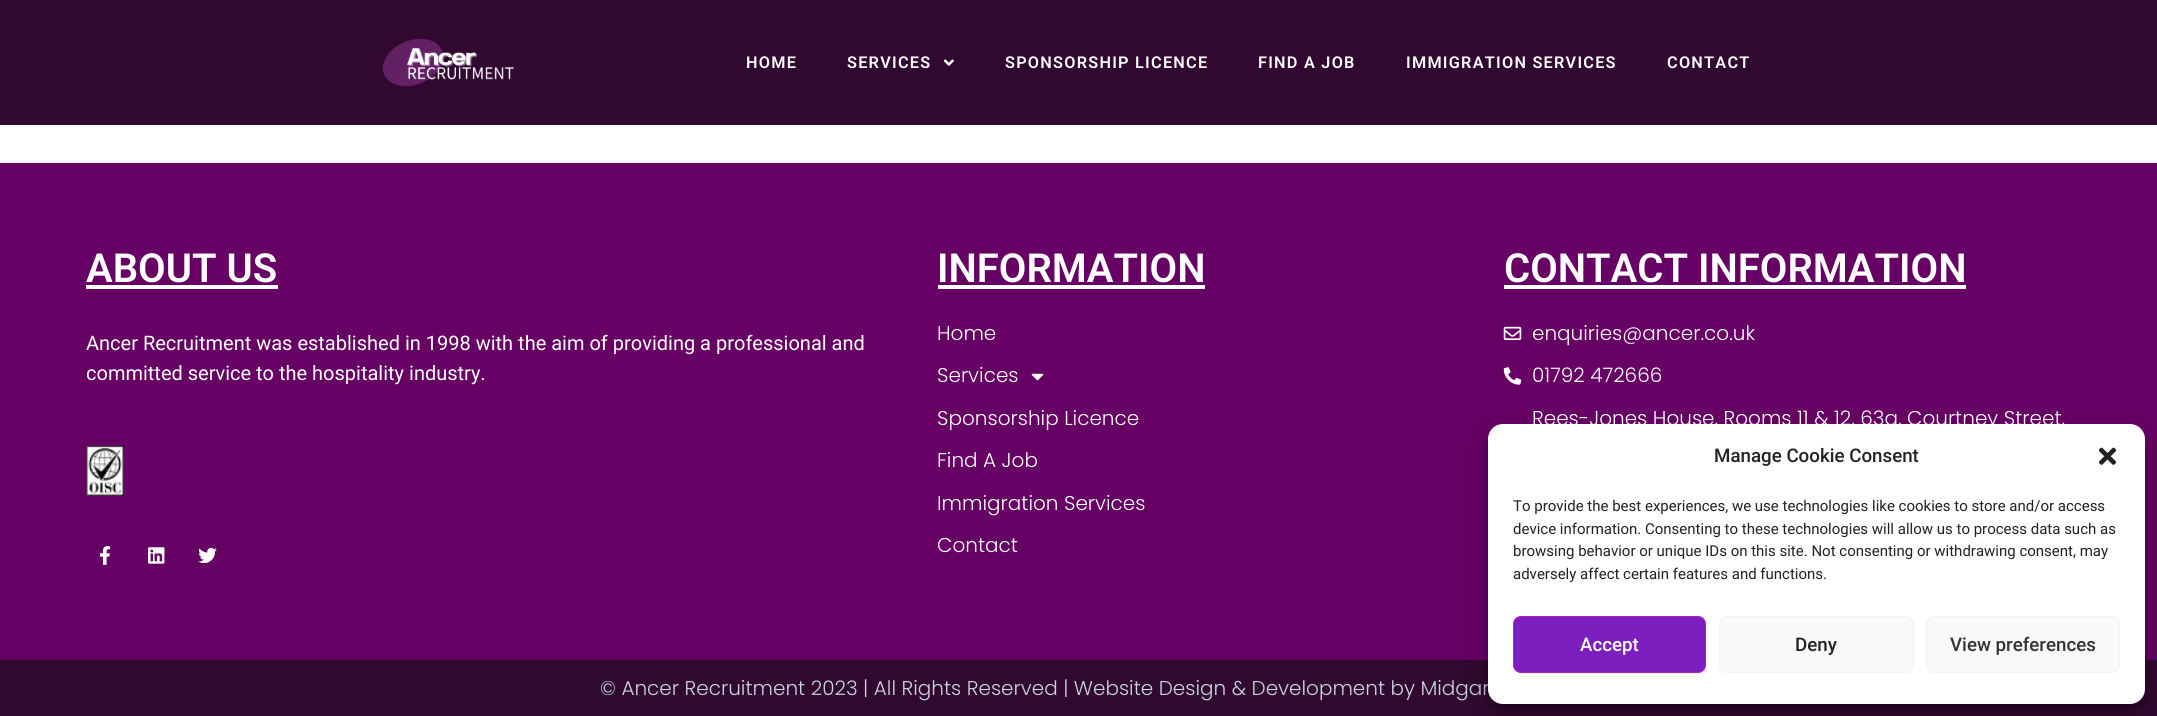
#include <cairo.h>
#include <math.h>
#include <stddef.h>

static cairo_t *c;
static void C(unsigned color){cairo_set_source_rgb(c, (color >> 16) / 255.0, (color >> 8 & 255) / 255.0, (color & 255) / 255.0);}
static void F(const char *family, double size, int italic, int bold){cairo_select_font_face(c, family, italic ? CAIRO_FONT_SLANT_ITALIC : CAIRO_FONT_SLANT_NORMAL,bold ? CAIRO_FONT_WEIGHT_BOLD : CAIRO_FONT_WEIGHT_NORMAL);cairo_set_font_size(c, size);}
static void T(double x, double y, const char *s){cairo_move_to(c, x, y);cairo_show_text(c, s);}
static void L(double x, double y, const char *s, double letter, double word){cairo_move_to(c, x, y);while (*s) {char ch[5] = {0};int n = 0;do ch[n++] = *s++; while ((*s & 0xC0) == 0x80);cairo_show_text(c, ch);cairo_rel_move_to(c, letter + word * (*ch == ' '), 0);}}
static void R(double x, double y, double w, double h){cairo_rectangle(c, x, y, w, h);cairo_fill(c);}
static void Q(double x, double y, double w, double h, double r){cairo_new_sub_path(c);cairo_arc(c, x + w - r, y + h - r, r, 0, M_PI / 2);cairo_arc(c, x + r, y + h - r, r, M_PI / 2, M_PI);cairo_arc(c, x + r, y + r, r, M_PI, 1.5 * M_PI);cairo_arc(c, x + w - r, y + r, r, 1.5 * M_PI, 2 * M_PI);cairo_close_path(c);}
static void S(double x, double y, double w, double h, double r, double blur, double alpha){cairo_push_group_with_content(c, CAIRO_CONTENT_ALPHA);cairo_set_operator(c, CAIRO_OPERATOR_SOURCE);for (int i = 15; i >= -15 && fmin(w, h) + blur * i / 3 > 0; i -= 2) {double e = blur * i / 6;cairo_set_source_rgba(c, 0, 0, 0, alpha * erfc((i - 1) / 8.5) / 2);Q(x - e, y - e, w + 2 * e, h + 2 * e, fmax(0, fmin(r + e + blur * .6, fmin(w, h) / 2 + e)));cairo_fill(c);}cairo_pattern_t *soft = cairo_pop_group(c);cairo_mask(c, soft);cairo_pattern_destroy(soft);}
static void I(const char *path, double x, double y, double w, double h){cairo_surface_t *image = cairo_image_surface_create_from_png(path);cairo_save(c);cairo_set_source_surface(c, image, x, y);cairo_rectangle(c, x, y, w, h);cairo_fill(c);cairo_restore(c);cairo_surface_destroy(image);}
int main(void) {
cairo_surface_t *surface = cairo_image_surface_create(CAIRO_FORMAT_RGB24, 2157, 716);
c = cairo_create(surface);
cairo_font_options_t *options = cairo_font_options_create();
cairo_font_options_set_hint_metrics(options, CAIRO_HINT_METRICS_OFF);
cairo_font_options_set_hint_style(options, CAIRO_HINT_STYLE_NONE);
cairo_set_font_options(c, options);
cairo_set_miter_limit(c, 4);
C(0xffffff);
cairo_paint(c);
C(0x310830);
R(0,0,2157,125);
I("1.png",382,38,132,49);
F("Roboto SemiBold",16.25,0,0);
C(0xffffff);
L(746,68,"HOME",1.25,0);
L(847,68,"SERVICES",1.25,0);
I("2.png",943,59,11,7);
L(1005,68,"SPONSORSHIP LICENCE",1.25,0);
L(1258,68,"FIND A JOB",1.25,0);
L(1406,68,"IMMIGRATION SERVICES",1.25,0);
L(1667,68,"CONTACT",1.25,0);
C(0x660064);
R(0,163,2157,497);
F("Roboto SemiBold",40,0,0);
C(0xffffff);
T(86,282,"ABOUT US");
R(86,285,192,4);
F("Roboto",20,0,0);
T(86,350,"Ancer Recruitment was established in 1998 with the aim of providing a professional and");
T(86,380,"committed service to the hospitality industry.");
I("3.png",86,445,38,51);
I("4.png",100,546,10,19);
I("5.png",148,547,17,17);
I("6.png",198,547,19,17);
F("Roboto SemiBold",40,0,0);
T(937,282,"INFORMATION");
R(938,285,267,4);
F("Poppins Light",20,0,0);
T(937,340,"Home");
T(937,382,"Services");
I("7.png",1031,373,13,8);
T(937,425,"Sponsorship Licence");
T(937,467,"Find A Job");
T(937,510,"Immigration Services");
T(937,552,"Contact");
F("Roboto SemiBold",40,0,0);
T(1504,282,"CONTACT INFORMATION");
R(1504,285,462,4);
I("8.png",1503,326,19,14);
F("Poppins Light",20,0,0);
T(1532,340,"enquiries@ancer.co.uk");
I("9.png",1503,367,19,18);
T(1532,382,"01792 472666");
T(1532,425,"Rees-Jones House, Rooms 11 & 12, 63a, Courtney Street,");
C(0x310830);
R(0,660,2157,56);
C(0xc8d5dc);
T(600,695,"© Ancer Recruitment 2023 | All Rights Reserved | Website Design & Development by Midgar");
C(0x000000);
S(1488,431,657,280,15,4,.23);
S(1488,436,657,280,15,12.5,.19);
C(0xffffff);
Q(1488,424,657,280,15);
cairo_fill(c);
F("Roboto Medium",18.75,0,0);
C(0x222222);
T(1714,462,"Manage Cookie Consent");
I("10.png",2098,447,19,18);
F("Roboto",15,0,0);
T(1513,511,"To provide the best experiences, we use technologies like cookies to store and/or access");
T(1513,534,"device information. Consenting to these technologies will allow us to process data such as");
T(1513,556,"browsing behavior or unique IDs on this site. Not consenting or withdrawing consent, may");
T(1513,579,"adversely affect certain features and functions.");
C(0x7d1ebe);
Q(1513.5,616.5,192,56,7.5);
cairo_fill_preserve(c);
C(0xb01ebe);
cairo_set_line_width(c,1);
cairo_stroke(c);
F("Roboto Medium",18.75,0,0);
C(0xffffff);
T(1580,651,"Accept");
C(0xf9f9f9);
Q(1719.5,616.5,194,56,7.5);
cairo_fill_preserve(c);
C(0xf2f2f2);
cairo_stroke(c);
C(0x222222);
T(1795,651,"Deny");
C(0xf9f9f9);
Q(1926.5,616.5,193,56,7.5);
cairo_fill_preserve(c);
C(0xf2f2f2);
cairo_stroke(c);
C(0x333333);
T(1950,651,"View preferences");
cairo_surface_write_to_png(surface, "o.png");
cairo_font_options_destroy(options);
cairo_destroy(c);
cairo_surface_destroy(surface);
return 0;
}
